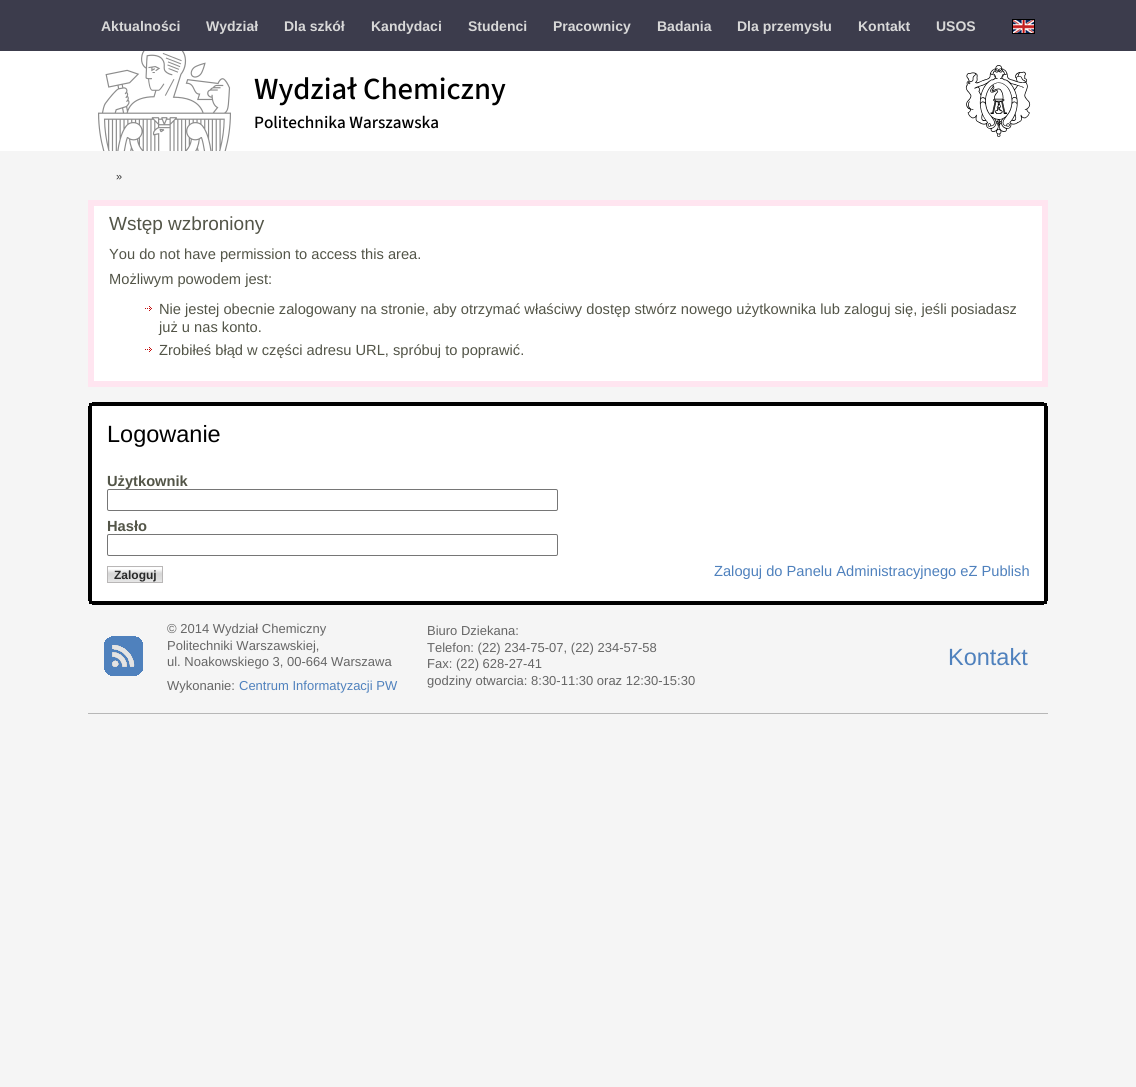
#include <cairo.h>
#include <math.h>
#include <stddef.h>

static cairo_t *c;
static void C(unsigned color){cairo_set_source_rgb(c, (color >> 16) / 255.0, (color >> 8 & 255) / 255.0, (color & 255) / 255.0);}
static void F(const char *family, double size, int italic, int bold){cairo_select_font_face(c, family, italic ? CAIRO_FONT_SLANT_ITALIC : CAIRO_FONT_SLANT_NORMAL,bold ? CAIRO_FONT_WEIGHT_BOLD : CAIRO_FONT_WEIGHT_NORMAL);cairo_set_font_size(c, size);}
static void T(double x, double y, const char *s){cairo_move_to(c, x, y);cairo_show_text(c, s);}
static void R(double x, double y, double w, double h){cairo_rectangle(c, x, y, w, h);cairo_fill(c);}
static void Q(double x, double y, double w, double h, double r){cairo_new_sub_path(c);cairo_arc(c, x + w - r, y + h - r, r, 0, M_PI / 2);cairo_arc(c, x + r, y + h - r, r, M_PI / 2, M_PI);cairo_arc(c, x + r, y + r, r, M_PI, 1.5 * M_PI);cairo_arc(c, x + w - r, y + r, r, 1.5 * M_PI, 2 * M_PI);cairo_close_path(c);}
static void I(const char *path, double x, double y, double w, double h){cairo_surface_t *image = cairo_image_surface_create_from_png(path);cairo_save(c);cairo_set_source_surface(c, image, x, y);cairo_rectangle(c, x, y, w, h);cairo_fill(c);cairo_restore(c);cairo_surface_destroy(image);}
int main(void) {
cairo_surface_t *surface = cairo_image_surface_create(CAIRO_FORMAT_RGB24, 1136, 1087);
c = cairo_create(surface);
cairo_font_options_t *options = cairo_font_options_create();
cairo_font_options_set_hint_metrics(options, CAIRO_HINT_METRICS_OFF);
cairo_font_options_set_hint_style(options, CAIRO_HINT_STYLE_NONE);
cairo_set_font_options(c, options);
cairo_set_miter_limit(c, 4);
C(0xf5f5f5);
cairo_paint(c);
C(0x3c3c4c);
R(0,0,1136,51);
F("Liberation Sans",14,0,1);
C(0xd8d8d8);
T(101,31,"Aktualności");
T(206,31,"Wydział");
T(284,31,"Dla szkół");
T(371,31,"Kandydaci");
T(468,31,"Studenci");
T(553,31,"Pracownicy");
T(657,31,"Badania");
T(737,31,"Dla przemysłu");
T(858,31,"Kontakt");
T(936,31,"USOS");
I("1.png",1012,19,23,15);
C(0xffffff);
R(0,51,1136,100);
I("2.png",98,51,133,100);
F("Source Sans 3 Medium",30.75,0,0);
C(0x000000);
T(254,99,"Wydział Chemiczny");
F("Source Sans 3 Medium",17.25,0,0);
T(254,128,"Politechnika Warszawska");
I("3.png",965,65,66,72);
F("Liberation Sans",11,0,0);
C(0x333333);
T(116,180,"»");
C(0xffffff);
cairo_rectangle(c,91,203,954,181);
cairo_fill_preserve(c);
C(0xffe5f0);
cairo_set_line_width(c,6);
cairo_stroke(c);
F("Liberation Sans",19,0,0);
C(0x535548);
T(109,230,"Wstęp wzbroniony");
F("Liberation Sans",14.67,0,0);
T(109,259,"You do not have permission to access this area.");
T(109,284,"Możliwym powodem jest:");
I("4.png",145,306,7,5);
T(159,314,"Nie jestej obecnie zalogowany na stronie, aby otrzymać właściwy dostęp stwórz nowego użytkownika lub zaloguj się, jeśli posiadasz");
T(159,332,"już u nas konto.");
I("4.png",145,347,7,5);
T(159,355,"Zrobiłeś błąd w części adresu URL, spróbuj to poprawić.");
C(0x000000);
R(89,403,3,3);
R(1044,403,3,3);
R(92,402,952,4);
R(88,406,4,195);
R(1044,406,4,195);
C(0xffffff);
R(92,406,952,195);
F("Liberation Sans",23.5,0,0);
C(0x000000);
T(107,442,"Logowanie");
F("Liberation Sans",14.67,0,1);
C(0x535548);
T(107,486,"Użytkownik");
Q(107.5,489.5,450,21,1.5);
C(0x767676);
cairo_set_line_width(c,1);
cairo_stroke(c);
C(0x535548);
T(107,531,"Hasło");
Q(107.5,534.5,450,21,1.5);
C(0x767676);
cairo_stroke(c);
I("5.png",108,567,54,15);
cairo_rectangle(c,107.5,566.5,55,16);
C(0xb9b7b7);
cairo_stroke(c);
F("Liberation Sans",12,0,1);
C(0x282929);
T(114,579,"Zaloguj");
F("Liberation Sans",14.67,0,0);
C(0x4f81bd);
T(714,576,"Zaloguj do Panelu Administracyjnego eZ Publish");
C(0x000000);
R(89,601,3,3);
R(1044,601,3,3);
R(92,601,952,4);
C(0xb7b7b7);
R(88,713,960,1);
I("6.png",104,636,39,40);
F("Liberation Sans",13,0,0);
C(0x666666);
T(167,633,"© 2014 Wydział Chemiczny");
T(167,650,"Politechniki Warszawskiej,");
T(167,666,"ul. Noakowskiego 3, 00-664 Warszawa");
T(167,690,"Wykonanie:");
C(0x4f81bd);
T(239,690,"Centrum Informatyzacji PW");
C(0x666666);
T(427,635,"Biuro Dziekana:");
T(427,652,"Telefon: (22) 234-75-07, (22) 234-57-58");
T(427,668,"Fax: (22) 628-27-41");
T(427,685,"godziny otwarcia: 8:30-11:30 oraz 12:30-15:30");
F("Liberation Sans",23.5,0,0);
C(0x4f81bd);
T(948,665,"Kontakt");
cairo_surface_write_to_png(surface, "o.png");
cairo_font_options_destroy(options);
cairo_destroy(c);
cairo_surface_destroy(surface);
return 0;
}
